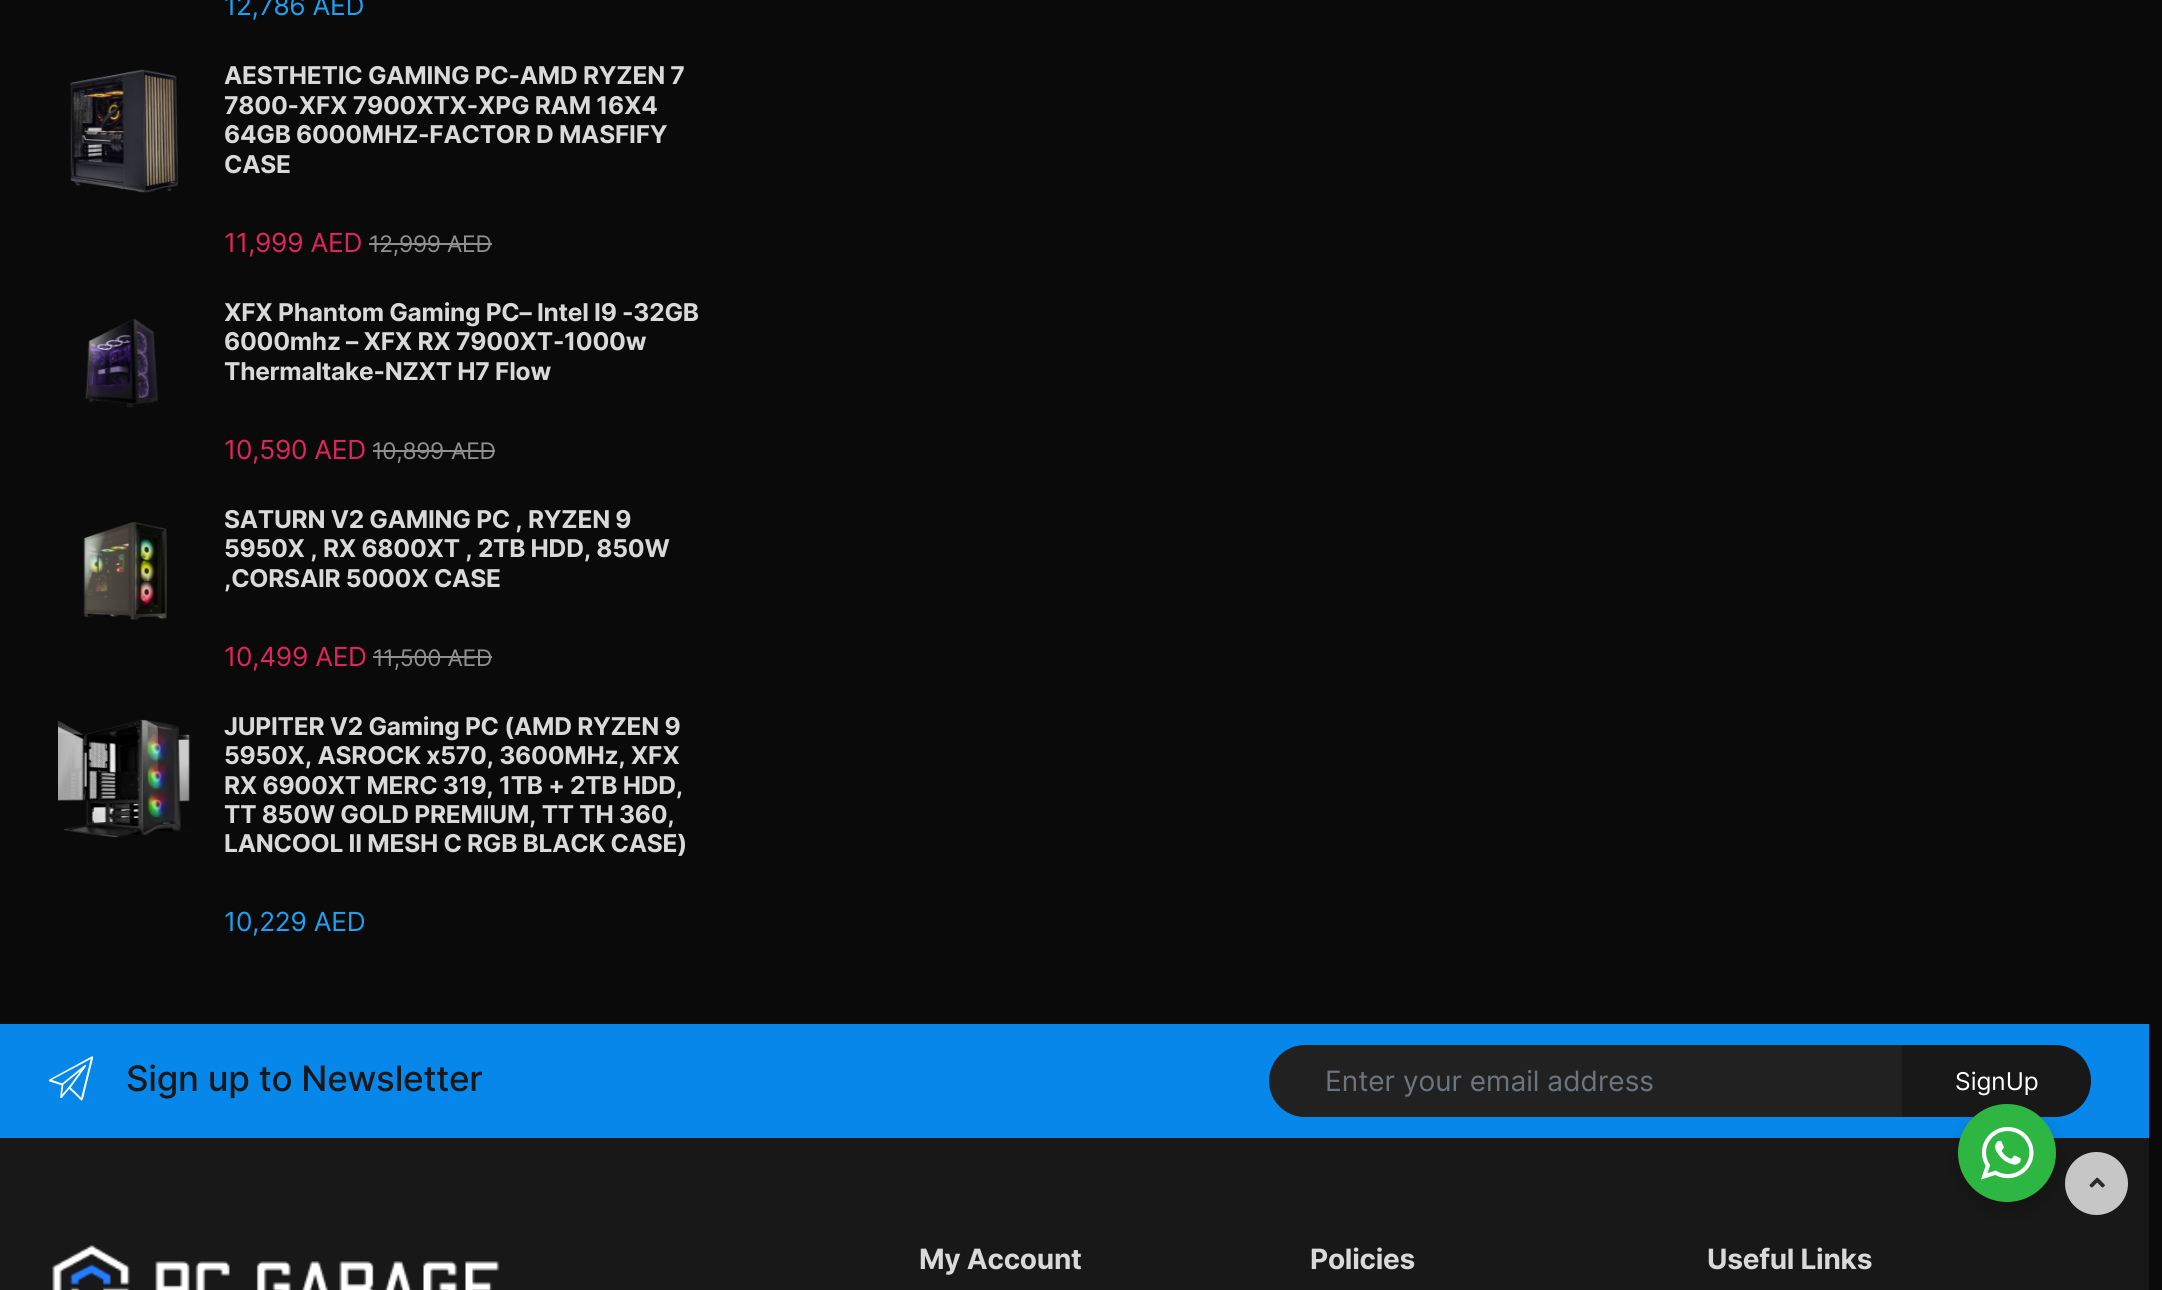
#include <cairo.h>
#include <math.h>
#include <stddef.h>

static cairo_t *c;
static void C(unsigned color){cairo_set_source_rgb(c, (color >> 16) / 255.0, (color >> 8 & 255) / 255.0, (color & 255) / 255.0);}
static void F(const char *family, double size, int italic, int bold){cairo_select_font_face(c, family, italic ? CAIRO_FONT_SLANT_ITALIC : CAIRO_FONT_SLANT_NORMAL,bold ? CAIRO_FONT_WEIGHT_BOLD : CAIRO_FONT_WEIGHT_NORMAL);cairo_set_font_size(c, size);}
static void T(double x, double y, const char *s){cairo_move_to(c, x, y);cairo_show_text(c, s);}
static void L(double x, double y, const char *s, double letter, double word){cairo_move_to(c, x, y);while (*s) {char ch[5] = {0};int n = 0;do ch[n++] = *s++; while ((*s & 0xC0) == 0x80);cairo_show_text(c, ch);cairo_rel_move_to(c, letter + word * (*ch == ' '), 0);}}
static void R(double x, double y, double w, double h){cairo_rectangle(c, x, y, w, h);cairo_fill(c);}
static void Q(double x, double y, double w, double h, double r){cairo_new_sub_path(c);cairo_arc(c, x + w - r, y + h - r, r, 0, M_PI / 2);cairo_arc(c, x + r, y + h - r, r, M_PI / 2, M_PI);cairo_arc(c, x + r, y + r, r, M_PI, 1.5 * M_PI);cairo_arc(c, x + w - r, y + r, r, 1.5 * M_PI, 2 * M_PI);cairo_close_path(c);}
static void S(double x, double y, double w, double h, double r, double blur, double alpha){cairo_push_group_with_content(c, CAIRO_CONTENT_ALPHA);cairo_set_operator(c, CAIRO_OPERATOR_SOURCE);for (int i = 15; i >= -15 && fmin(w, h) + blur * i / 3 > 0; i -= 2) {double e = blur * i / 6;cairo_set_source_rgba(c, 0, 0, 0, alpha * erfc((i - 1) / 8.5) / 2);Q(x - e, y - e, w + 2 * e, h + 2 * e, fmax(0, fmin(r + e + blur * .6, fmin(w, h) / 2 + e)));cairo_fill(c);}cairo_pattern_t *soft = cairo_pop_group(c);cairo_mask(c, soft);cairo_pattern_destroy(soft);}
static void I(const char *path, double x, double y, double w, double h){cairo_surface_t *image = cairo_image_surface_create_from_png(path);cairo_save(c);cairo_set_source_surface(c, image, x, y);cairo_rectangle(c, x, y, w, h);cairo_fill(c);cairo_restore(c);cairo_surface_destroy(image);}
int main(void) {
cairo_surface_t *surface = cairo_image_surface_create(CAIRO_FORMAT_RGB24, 2162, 1290);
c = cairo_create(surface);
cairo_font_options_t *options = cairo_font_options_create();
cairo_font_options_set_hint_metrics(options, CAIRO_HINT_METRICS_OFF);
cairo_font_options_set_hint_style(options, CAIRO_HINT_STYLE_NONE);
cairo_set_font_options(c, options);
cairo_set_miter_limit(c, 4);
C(0x0a0a0a);
cairo_paint(c);
F("Inter",26.25,0,0);
C(0x1da1f2);
L(224,15,"12,786 AED",-.25,0);
I("1.png",69,69,110,124);
F("Inter",24.5,0,1);
C(0xd9d9d9);
L(224,84,"AESTHETIC GAMING PC-AMD RYZEN 7",-.25,0);
L(224,114,"7800-XFX 7900XTX-XPG RAM 16X4",-.25,0);
L(224,143,"64GB 6000MHZ-FACTOR D MASFIFY",-.25,0);
L(224,173,"CASE",-.25,0);
F("Inter",26.25,0,0);
C(0xe0245e);
L(224,252,"11,999 AED",-.25,0);
F("Inter",22.75,0,0);
C(0x8f8f8f);
L(369,252,"12,999 AED",-.25,0);
R(369,243,123,2);
I("2.png",85,318,73,90);
F("Inter",24.5,0,1);
C(0xd9d9d9);
L(224,321,"XFX Phantom Gaming PC– Intel I9 -32GB",-.25,0);
L(224,350,"6000mhz – XFX RX 7900XT-1000w",-.25,0);
L(224,380,"Thermaltake-NZXT H7 Flow",-.25,0);
F("Inter",26.25,0,0);
C(0xe0245e);
L(224,459,"10,590 AED",-.25,0);
F("Inter",22.75,0,0);
C(0x8f8f8f);
L(372,459,"10,899",-.25,0);
R(373,450,79,2);
L(451,459,"AED",-.25,0);
R(452,450,43,2);
I("3.png",83,522,84,98);
F("Inter",24.5,0,1);
C(0xd9d9d9);
L(224,528,"SATURN V2 GAMING PC , RYZEN 9",-.25,0);
L(224,557,"5950X , RX 6800XT , 2TB HDD, 850W",-.25,0);
L(224,587,",CORSAIR 5000X CASE",-.25,0);
F("Inter",26.25,0,0);
C(0xe0245e);
L(224,666,"10,499 AED",-.25,0);
F("Inter",22.75,0,0);
C(0x8f8f8f);
L(373,666,"11,500 AED",-.25,0);
R(373,656,119,2);
I("4.png",58,719,132,119);
F("Inter",24.5,0,1);
C(0xd9d9d9);
L(224,735,"JUPITER V2 Gaming PC (AMD RYZEN 9",-.25,0);
L(224,764,"5950X, ASROCK x570, 3600MHz, XFX",-.25,0);
L(224,794,"RX 6900XT MERC 319, 1TB + 2TB HDD,",-.25,0);
L(224,823,"TT 850W GOLD PREMIUM, TT TH 360,",-.25,0);
L(224,852,"LANCOOL II MESH C RGB BLACK CASE)",-.25,0);
F("Inter",26.25,0,0);
C(0x1da1f2);
L(224,931,"10,229 AED",-.25,0);
C(0x0787ea);
R(0,1024,2149,114);
I("5.png",48,1056,45,45);
F("Inter Medium",35,0,0);
C(0x181818);
L(126,1091,"Sign up to Newsletter",-.25,0);
C(0x212121);
cairo_new_path(c);
cairo_move_to(c,1305,1045);
cairo_line_to(c,1902,1045);
cairo_line_to(c,1902,1117);
cairo_line_to(c,1305,1117);
cairo_curve_to(c,1285,1117,1269,1101,1269,1081);
cairo_curve_to(c,1269,1061,1285,1045,1305,1045);
cairo_close_path(c);
cairo_fill(c);
F("Inter",28,0,0);
C(0x6c757d);
T(1325,1091,"Enter your email address");
C(0x181818);
cairo_new_path(c);
cairo_move_to(c,1902,1045);
cairo_line_to(c,2055,1045);
cairo_curve_to(c,2075,1045,2091,1061,2091,1081);
cairo_curve_to(c,2091,1101,2075,1117,2055,1117);
cairo_line_to(c,1902,1117);
cairo_close_path(c);
cairo_fill(c);
F("Inter",24.5,0,0);
C(0xffffff);
T(1955,1090,"SignUp");
C(0x181818);
R(0,1138,2149,152);
I("6.png",52,1245,448,45);
F("Inter",28,0,1);
C(0xd9d9d9);
L(919,1269,"My Account",-.25,0);
L(1310,1269,"Policies",-.25,0);
L(1707,1269,"Useful Links",-.25,0);
C(0xc6c6c6);
cairo_new_path(c);
cairo_arc(c,2096.5,1183.5,31.5,0,2 * M_PI);
cairo_fill(c);
C(0x000000);
S(1955,1111,105,105,52.5,7,.14);
C(0x2db742);
cairo_arc(c,2007,1153,49,0,2 * M_PI);
cairo_fill(c);
I("7.png",1981,1127,53,53);
I("8.png",2089,1177,16,11);
cairo_surface_write_to_png(surface, "o.png");
cairo_font_options_destroy(options);
cairo_destroy(c);
cairo_surface_destroy(surface);
return 0;
}
